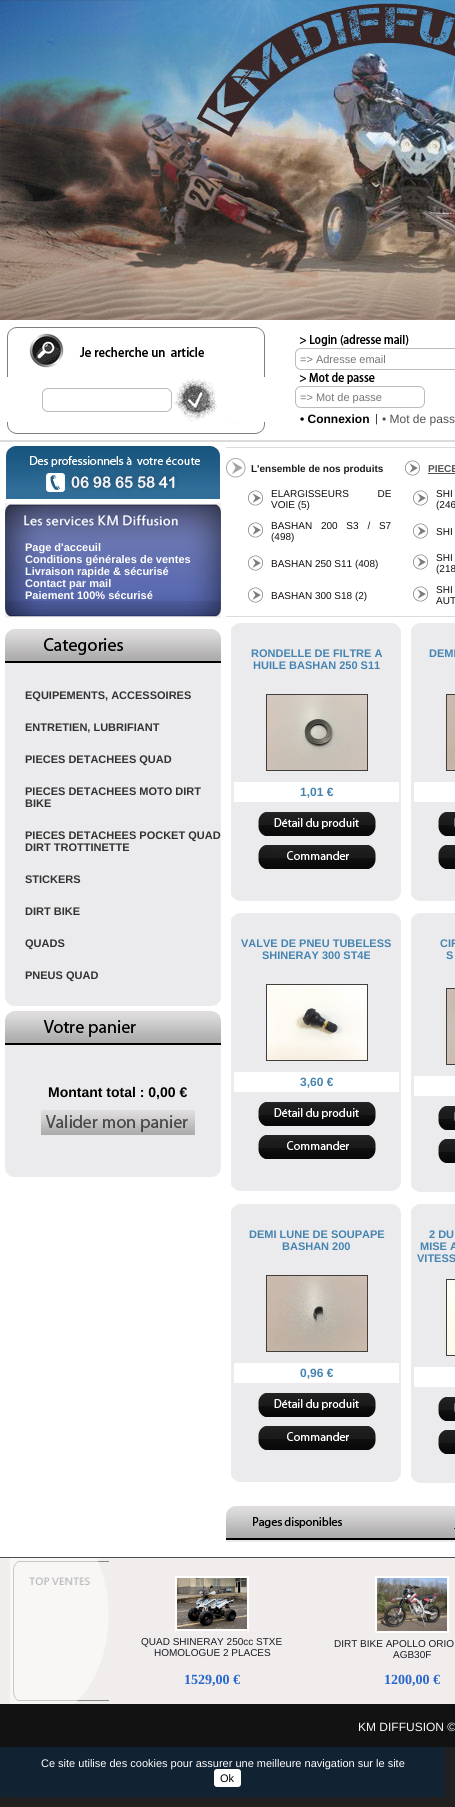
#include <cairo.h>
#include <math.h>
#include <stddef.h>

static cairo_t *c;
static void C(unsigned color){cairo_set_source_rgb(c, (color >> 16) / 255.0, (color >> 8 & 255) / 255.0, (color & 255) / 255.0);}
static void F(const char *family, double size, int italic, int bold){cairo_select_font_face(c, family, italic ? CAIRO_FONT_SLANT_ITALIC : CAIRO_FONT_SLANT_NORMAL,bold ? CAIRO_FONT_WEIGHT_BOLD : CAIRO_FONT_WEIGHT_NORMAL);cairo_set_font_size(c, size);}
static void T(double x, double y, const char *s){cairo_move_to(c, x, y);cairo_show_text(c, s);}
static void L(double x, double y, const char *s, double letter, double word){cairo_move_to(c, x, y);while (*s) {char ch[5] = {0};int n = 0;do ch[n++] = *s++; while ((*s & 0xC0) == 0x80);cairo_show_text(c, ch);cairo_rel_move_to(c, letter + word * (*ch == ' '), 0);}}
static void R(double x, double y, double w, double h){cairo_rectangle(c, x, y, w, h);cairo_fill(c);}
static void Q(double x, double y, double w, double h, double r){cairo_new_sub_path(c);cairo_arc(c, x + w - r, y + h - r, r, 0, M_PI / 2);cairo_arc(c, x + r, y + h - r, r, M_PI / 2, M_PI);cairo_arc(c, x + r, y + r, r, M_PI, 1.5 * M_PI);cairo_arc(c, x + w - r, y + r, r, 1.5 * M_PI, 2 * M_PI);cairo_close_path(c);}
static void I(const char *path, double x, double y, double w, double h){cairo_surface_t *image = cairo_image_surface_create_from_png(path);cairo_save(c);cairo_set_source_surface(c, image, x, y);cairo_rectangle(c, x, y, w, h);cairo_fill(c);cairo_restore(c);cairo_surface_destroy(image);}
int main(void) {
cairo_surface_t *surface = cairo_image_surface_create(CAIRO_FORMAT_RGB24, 455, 1807);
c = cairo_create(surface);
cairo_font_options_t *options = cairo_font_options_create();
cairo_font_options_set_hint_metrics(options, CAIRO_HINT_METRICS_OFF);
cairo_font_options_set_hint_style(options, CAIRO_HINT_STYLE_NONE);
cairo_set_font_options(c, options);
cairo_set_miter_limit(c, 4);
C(0x211f1f);
cairo_paint(c);
I("1.png",0,0,455,320);
C(0xffffff);
R(0,320,455,120);
I("2.png",7,327,258,50);
Q(42.5,388.5,129,23,5.5);
C(0xbbbbbb);
cairo_set_line_width(c,1);
cairo_stroke(c);
I("3.png",174,379,43,43);
I("4.png",7,422,258,12);
I("5.png",299,334,110,12);
Q(295.5,348.5,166,21,5.5);
cairo_stroke(c);
F("Liberation Sans",11,0,0);
C(0x757575);
T(300,363,"=> Adresse email");
I("6.png",299,372,76,12);
Q(295.5,386.5,129,21,5.5);
C(0xbbbbbb);
cairo_stroke(c);
C(0x757575);
T(300,401,"=> Mot de passe");
F("Liberation Sans",12,0,1);
C(0x000000);
T(300,423,"• Connexion");
F("Liberation Sans",11,0,0);
C(0x282828);
T(375,422,"|");
F("Liberation Sans",12,0,0);
C(0x525252);
T(382,423,"• Mot de pass");
C(0xdbdbdb);
R(0,440,455,2);
C(0xffffff);
R(0,442,455,1115);
I("7.png",6,446,214,53);
I("8.png",5,503,216,38);
I("9.png",5,541,216,60);
F("Liberation Sans",11,0,1);
T(25,551,"Page d'acceuil");
T(25,563,"Conditions générales de ventes");
T(25,575,"Livraison rapide & sécurisé");
T(25,587,"Contact par mail");
T(25,599,"Paiement 100% sécurisé");
I("10.png",5,601,216,17);
I("11.png",5,629,216,50);
C(0xebebed);
R(5,679,216,312);
C(0x323232);
T(25,699,"EQUIPEMENTS, ACCESSOIRES");
T(25,731,"ENTRETIEN, LUBRIFIANT");
T(25,763,"PIECES DETACHEES QUAD");
T(25,795,"PIECES DETACHEES MOTO DIRT");
T(25,807,"BIKE");
T(25,839,"PIECES DETACHEES POCKET QUAD");
T(25,851,"DIRT TROTTINETTE");
T(25,883,"STICKERS");
T(25,915,"DIRT BIKE");
T(25,947,"QUADS");
T(25,979,"PNEUS QUAD");
I("12.png",5,991,216,15);
I("13.png",5,1011,216,53);
C(0xebebed);
R(5,1064,216,81);
F("Liberation Sans",14,0,1);
C(0x000000);
T(48,1097,"Montant total : 0,00 €");
I("14.png",41,1110,154,25);
I("15.png",5,1145,216,32);
C(0xdbdbdb);
R(226,447,229,1);
I("16.png",226,458,20,20);
F("Liberation Sans",10,0,1);
C(0x1d1c1c);
T(251,472,"L'ensemble de nos produits");
I("17.png",405,460,15,16);
C(0x525252);
T(428,472,"PIECE");
C(0x555050);
R(428,473,27,1);
I("17.png",248,490,15,16);
F("Liberation Sans",10,0,0);
C(0x110d0c);
L(271,497,"ELARGISSEURS DE",0,26);
T(271,508,"VOIE (5)");
I("17.png",413,490,15,16);
L(436,497,"SHI",0,2);
T(436,508,"(246");
I("17.png",248,522,15,16);
L(271,529,"BASHAN 200 S3 / S7",0,6);
T(271,540,"(498)");
I("17.png",413,523,15,16);
T(436,535,"SHI");
I("17.png",248,555,15,16);
T(271,567,"BASHAN 250 S11 (408)");
I("17.png",413,554,15,16);
T(436,561,"SHI");
T(436,572,"(218");
I("17.png",248,587,15,16);
T(271,599,"BASHAN 300 S18 (2)");
I("17.png",413,586,15,16);
L(436,593,"SHI",0,34);
T(436,604,"AUT");
C(0xdbdbdb);
R(226,616,229,1);
I("18.png",231,623,170,19);
C(0xebebed);
R(231,642,170,240);
F("Liberation Sans",11,0,1);
C(0x4584b0);
T(251,657,"RONDELLE DE FILTRE A");
T(253,669,"HUILE BASHAN 250 S11");
cairo_rectangle(c,266.5,694.5,101,76);
C(0x413e3e);
cairo_stroke(c);
I("19.png",267,695,100,75);
C(0xffffff);
R(234,782,165,20);
F("Liberation Sans",12,0,1);
C(0x4584b0);
T(300,796,"1,01 €");
I("20.png",258,812,118,24);
I("21.png",258,845,118,24);
I("22.png",231,882,170,19);
I("23.png",411,623,44,19);
C(0xebebed);
R(411,642,44,240);
F("Liberation Sans",11,0,1);
C(0x4584b0);
T(429,657,"DEMI");
cairo_rectangle(c,446.5,694.5,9,76);
C(0x413e3e);
cairo_stroke(c);
I("24.png",447,695,8,75);
C(0xffffff);
R(414,782,41,20);
I("25.png",438,812,17,24);
I("26.png",438,845,17,24);
I("27.png",411,882,44,19);
I("18.png",231,913,170,19);
C(0xebebed);
R(231,932,170,240);
C(0x4584b0);
T(241,947,"VALVE DE PNEU TUBELESS");
T(262,959,"SHINERAY 300 ST4E");
cairo_rectangle(c,266.5,984.5,101,76);
C(0x413e3e);
cairo_stroke(c);
I("28.png",267,985,100,75);
C(0xffffff);
R(234,1072,165,20);
F("Liberation Sans",12,0,1);
C(0x4584b0);
T(300,1086,"3,60 €");
I("20.png",258,1102,118,24);
I("21.png",258,1135,118,24);
I("22.png",231,1172,170,19);
I("23.png",411,913,44,19);
C(0xebebed);
R(411,932,44,241);
F("Liberation Sans",11,0,1);
C(0x4584b0);
T(440,947,"CIR");
T(446,959,"S");
cairo_rectangle(c,446.5,988.5,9,76);
C(0x413e3e);
cairo_stroke(c);
I("29.png",447,989,8,75);
C(0xffffff);
R(414,1076,41,20);
I("25.png",438,1106,17,24);
I("26.png",438,1139,17,24);
I("27.png",411,1173,44,19);
I("18.png",231,1204,170,19);
C(0xebebed);
R(231,1223,170,240);
C(0x4584b0);
T(249,1238,"DEMI LUNE DE SOUPAPE");
T(282,1250,"BASHAN 200");
cairo_rectangle(c,266.5,1275.5,101,76);
C(0x413e3e);
cairo_stroke(c);
I("30.png",267,1276,100,75);
C(0xffffff);
R(234,1363,165,20);
F("Liberation Sans",12,0,1);
C(0x4584b0);
T(300,1377,"0,96 €");
I("20.png",258,1393,118,24);
I("21.png",258,1426,118,24);
I("22.png",231,1463,170,19);
I("23.png",411,1204,44,19);
C(0xebebed);
R(411,1223,44,241);
F("Liberation Sans",11,0,1);
C(0x4584b0);
T(429,1238,"2 DU");
T(420,1250,"MISE A");
T(417,1262,"VITESS");
cairo_rectangle(c,446.5,1279.5,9,76);
C(0x413e3e);
cairo_stroke(c);
I("31.png",447,1280,8,75);
C(0xffffff);
R(414,1367,41,20);
I("25.png",438,1397,17,24);
I("26.png",438,1430,17,24);
I("27.png",411,1464,44,19);
I("32.png",226,1506,188,36);
I("33.png",414,1506,41,36);
C(0x323131);
R(454,1528,1,1);
C(0x4c4c4c);
R(0,1557,455,1);
C(0xf2eded);
R(0,1558,455,146);
I("34.png",10,1558,99,146);
cairo_rectangle(c,176,1577,72,53);
C(0xffffff);
cairo_set_line_width(c,2);
cairo_stroke(c);
I("35.png",177,1578,70,51);
F("Liberation Sans",10,0,0);
C(0x171b23);
T(141,1645,"QUAD SHINERAY 250cc STXE");
T(154,1656,"HOMOLOGUE 2 PLACES");
F("Liberation Serif",14,0,1);
C(0x2766cd);
T(184,1684,"1529,00 €");
cairo_rectangle(c,376,1577,72,55);
C(0xffffff);
cairo_stroke(c);
I("36.png",377,1578,70,53);
F("Liberation Sans",10,0,0);
C(0x171b23);
T(334,1647,"DIRT BIKE APOLLO ORIO");
T(393,1658,"AGB30F");
F("Liberation Serif",14,0,1);
C(0x2766cd);
T(384,1684,"1200,00 €");
C(0x121212);
R(0,1704,455,43);
F("Liberation Sans",12,0,0);
C(0xfdf8f8);
T(358,1731,"KM DIFFUSION ©");
C(0x112233);
Q(0,1747,445,50,3);
cairo_fill(c);
F("Liberation Sans",11,0,0);
C(0xffffff);
T(41,1767,"Ce site utilise des cookies pour assurer une meilleure navigation sur le site");
Q(214,1769,27,18,3);
cairo_fill(c);
C(0x000000);
T(220,1782,"Ok");
cairo_surface_write_to_png(surface, "o.png");
cairo_font_options_destroy(options);
cairo_destroy(c);
cairo_surface_destroy(surface);
return 0;
}
